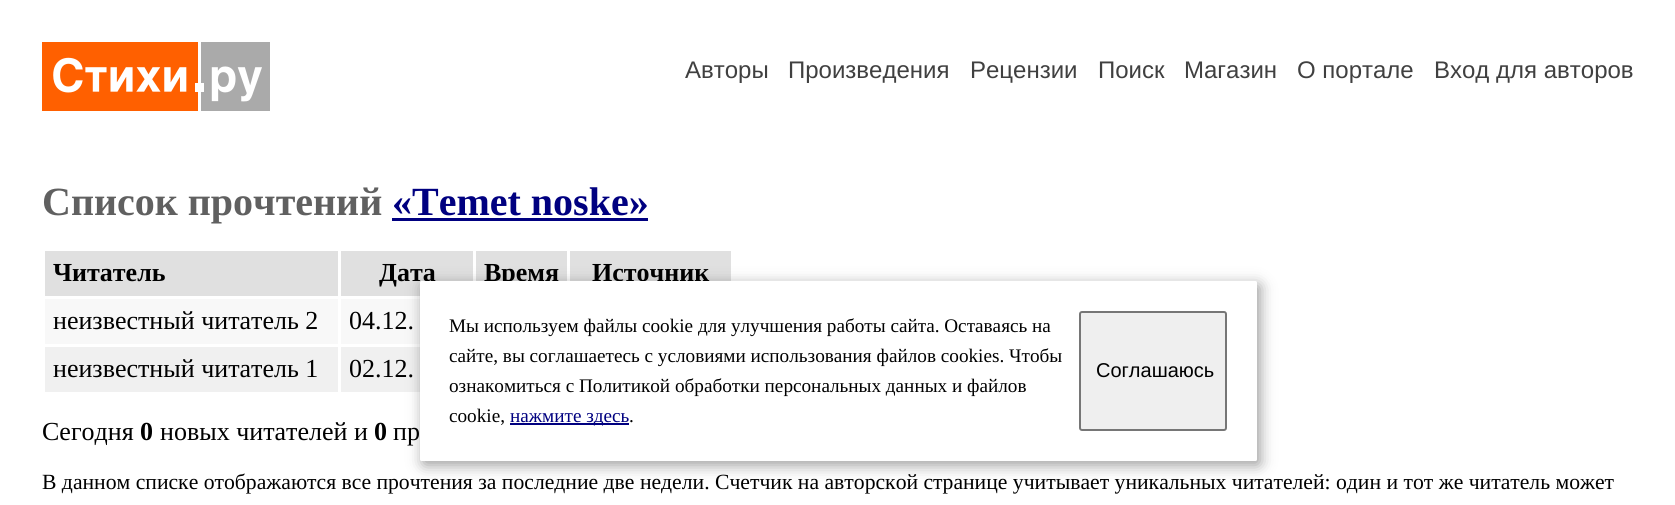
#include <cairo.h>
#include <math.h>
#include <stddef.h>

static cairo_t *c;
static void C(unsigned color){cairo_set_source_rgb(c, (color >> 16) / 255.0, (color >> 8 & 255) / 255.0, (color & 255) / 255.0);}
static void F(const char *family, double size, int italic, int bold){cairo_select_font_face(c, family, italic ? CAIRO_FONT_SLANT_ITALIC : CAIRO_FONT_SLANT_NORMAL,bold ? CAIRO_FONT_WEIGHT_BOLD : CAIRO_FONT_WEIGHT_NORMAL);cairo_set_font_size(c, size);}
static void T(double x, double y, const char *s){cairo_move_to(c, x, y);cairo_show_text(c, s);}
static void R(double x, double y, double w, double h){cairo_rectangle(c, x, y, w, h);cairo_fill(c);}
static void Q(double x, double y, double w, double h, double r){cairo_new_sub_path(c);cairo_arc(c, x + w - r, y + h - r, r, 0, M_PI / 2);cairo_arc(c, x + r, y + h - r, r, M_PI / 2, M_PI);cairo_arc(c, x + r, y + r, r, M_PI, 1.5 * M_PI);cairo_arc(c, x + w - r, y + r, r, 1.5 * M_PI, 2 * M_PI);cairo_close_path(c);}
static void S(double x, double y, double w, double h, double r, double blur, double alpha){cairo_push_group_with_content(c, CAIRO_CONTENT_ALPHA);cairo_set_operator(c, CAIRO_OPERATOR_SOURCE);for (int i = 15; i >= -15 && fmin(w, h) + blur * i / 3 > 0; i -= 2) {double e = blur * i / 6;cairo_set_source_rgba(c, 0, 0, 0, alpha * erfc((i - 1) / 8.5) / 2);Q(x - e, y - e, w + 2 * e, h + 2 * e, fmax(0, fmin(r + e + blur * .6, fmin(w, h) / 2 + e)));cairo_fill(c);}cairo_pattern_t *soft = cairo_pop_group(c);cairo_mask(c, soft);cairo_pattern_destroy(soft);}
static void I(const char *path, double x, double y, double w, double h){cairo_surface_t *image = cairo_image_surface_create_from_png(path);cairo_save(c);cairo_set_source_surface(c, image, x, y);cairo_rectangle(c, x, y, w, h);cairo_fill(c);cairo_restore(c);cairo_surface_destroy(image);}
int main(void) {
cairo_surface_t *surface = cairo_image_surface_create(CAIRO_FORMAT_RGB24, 1675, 505);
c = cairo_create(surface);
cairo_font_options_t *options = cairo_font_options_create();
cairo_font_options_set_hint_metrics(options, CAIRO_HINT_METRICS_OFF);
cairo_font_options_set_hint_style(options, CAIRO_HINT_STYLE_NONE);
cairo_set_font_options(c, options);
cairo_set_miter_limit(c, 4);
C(0xffffff);
cairo_paint(c);
I("1.png",42,42,228,69);
F("Liberation Sans",24,0,0);
C(0x404040);
T(685,78,"Авторы");
T(788,78,"Произведения");
T(970,78,"Рецензии");
T(1098,78,"Поиск");
T(1184,78,"Магазин");
T(1297,78,"О портале");
T(1434,78,"Вход для авторов");
F("Liberation Serif",40,0,1);
C(0x606060);
T(42,215,"Список прочтений");
C(0x000080);
T(392,215,"«Temet noske»");
R(392,218,256,3);
C(0xe0e0e0);
R(45,251,293,45);
F("Liberation Serif",26,0,1);
C(0x000000);
T(53,281,"Читатель");
C(0xe0e0e0);
R(341,251,132,45);
C(0x000000);
T(379,281,"Дата");
C(0xe0e0e0);
R(476,251,91,30);
C(0x000000);
T(484,281,"Время");
C(0xe0e0e0);
R(570,251,161,30);
C(0x000000);
T(592,281,"Источник");
C(0xf8f8f8);
R(45,299,293,45);
F("Liberation Serif",26,0,0);
C(0x000000);
T(53,329,"неизвестный читатель 2");
C(0xf8f8f8);
R(341,299,79,45);
C(0x000000);
T(349,329,"04.12.");
C(0xf0f0f0);
R(45,347,293,45);
C(0x000000);
T(53,377,"неизвестный читатель 1");
C(0xf0f0f0);
R(341,347,79,45);
C(0x000000);
T(349,377,"02.12.");
C(0x000000);
S(423,285,837,180,1.5,7.5,.4);
C(0xffffff);
Q(420,281,837,180,1.5);
cairo_fill(c);
F("Liberation Serif",19.2,0,0);
C(0x000000);
T(449,332,"Мы используем файлы cookie для улучшения работы сайта. Оставаясь на");
T(449,362,"сайте, вы соглашаетесь с условиями использования файлов cookies. Чтобы");
T(449,392,"ознакомиться с Политикой обработки персональных данных и файлов");
T(449,422,"cookie,");
C(0x000080);
R(510,423,119,2);
T(510,422,"нажмите здесь");
C(0x000000);
T(629,422,".");
C(0xefefef);
Q(1080,312,146,118,2);
cairo_fill_preserve(c);
C(0x767676);
cairo_stroke(c);
F("Liberation Sans",20,0,0);
C(0x000000);
T(1096,377,"Соглашаюсь");
F("Liberation Serif",26,0,0);
T(42,440,"Сегодня");
F("Liberation Serif",26,0,1);
T(140,440,"0");
F("Liberation Serif",26,0,0);
T(160,440,"новых читателей и");
F("Liberation Serif",26,0,1);
T(374,440,"0");
F("Liberation Serif",26,0,0);
T(393,440,"пр");
F("Liberation Serif",21.67,0,0);
T(42,489,"В данном списке отображаются все прочтения за последние две недели. Счетчик на авторской странице учитывает уникальных читателей: один и тот же читатель может");
cairo_surface_write_to_png(surface, "o.png");
cairo_font_options_destroy(options);
cairo_destroy(c);
cairo_surface_destroy(surface);
return 0;
}
